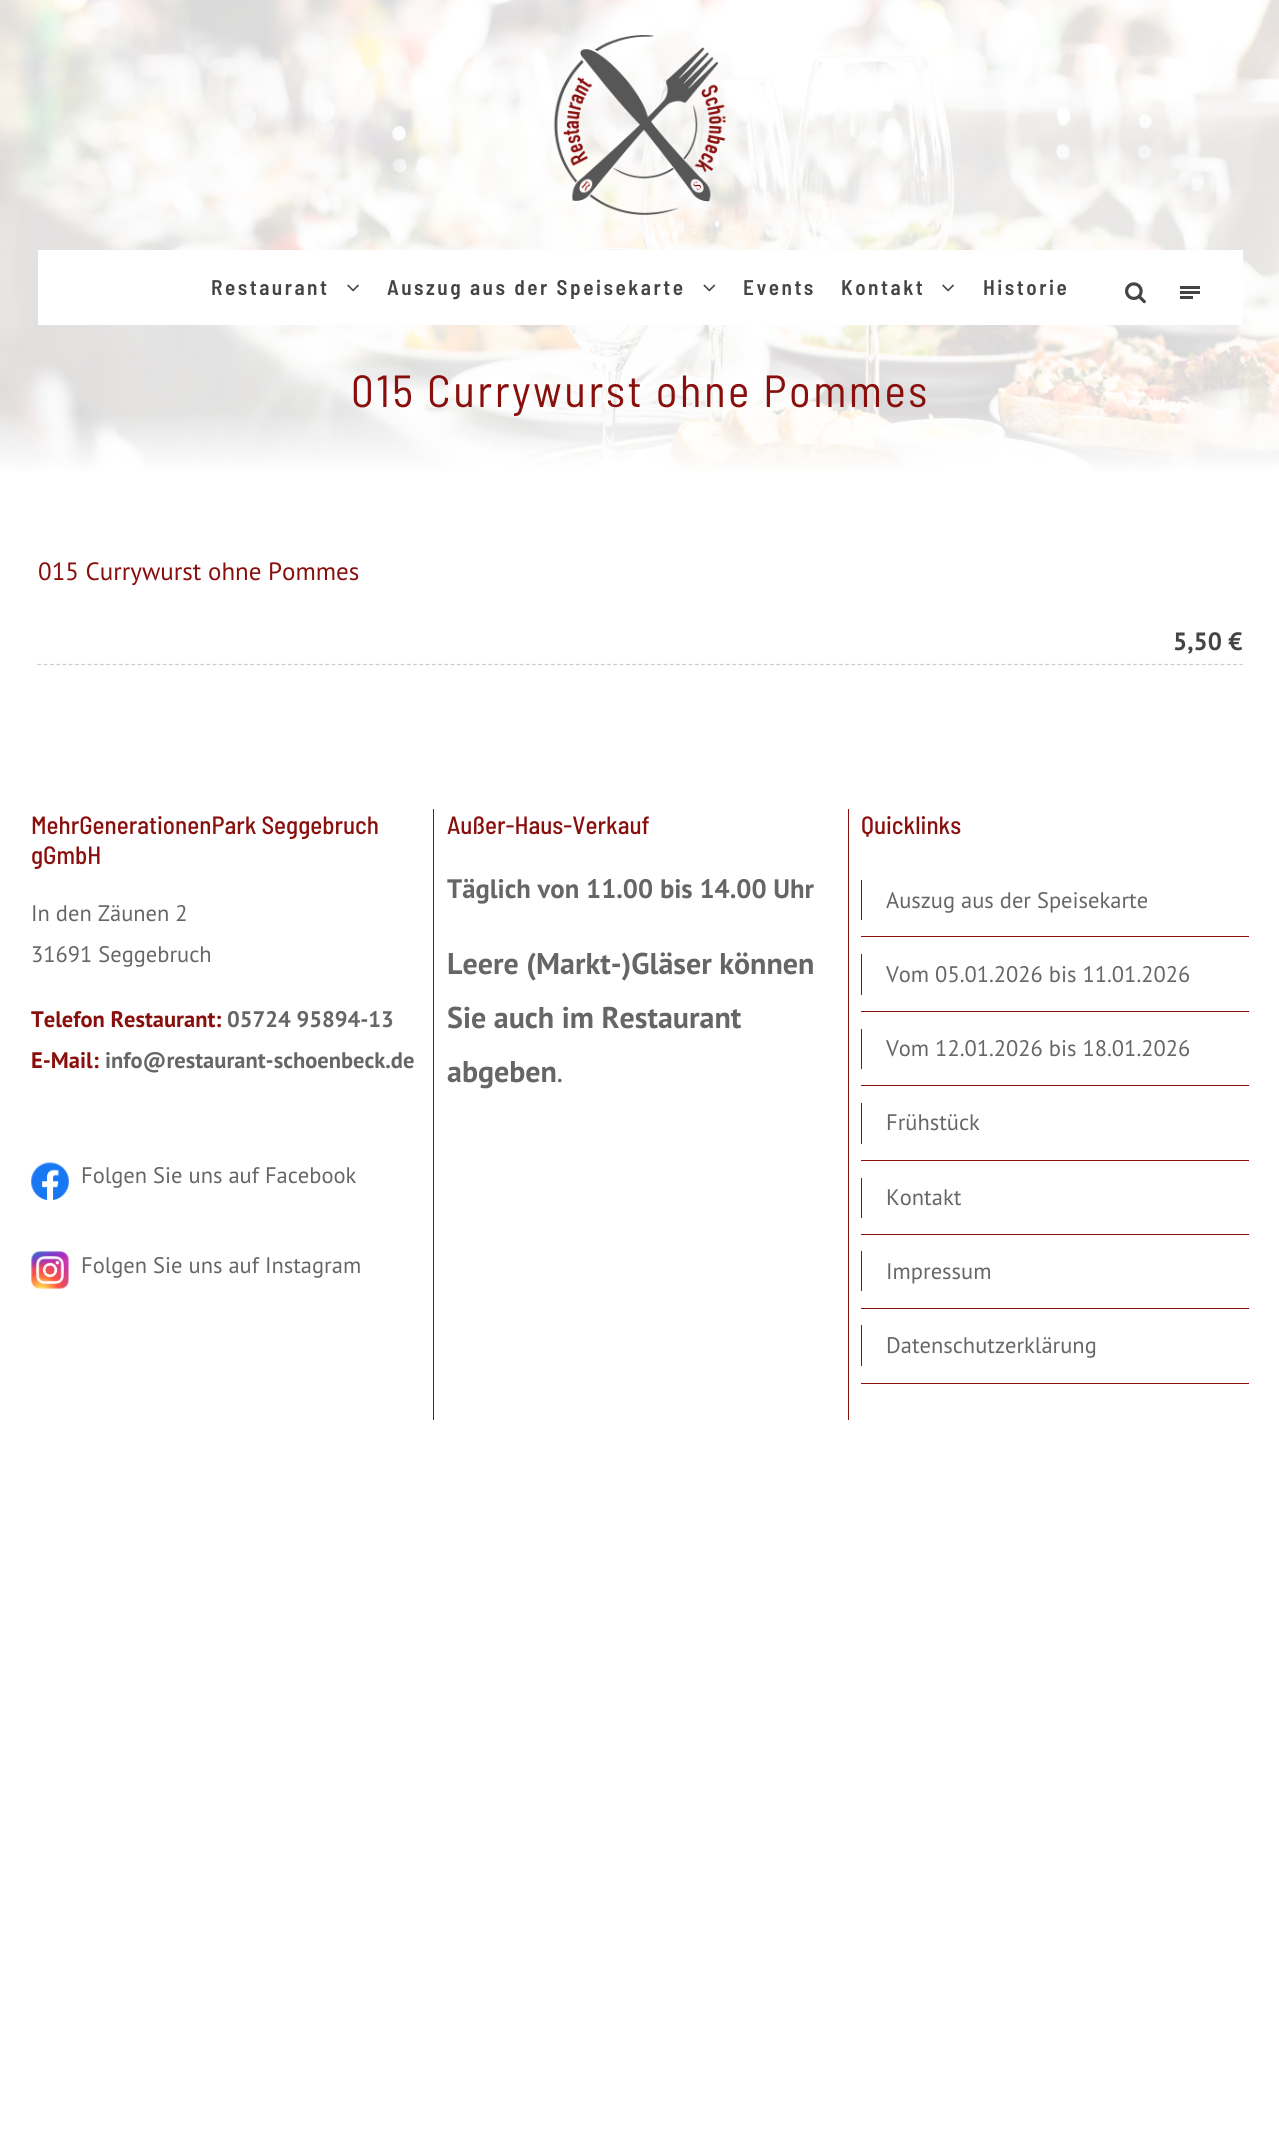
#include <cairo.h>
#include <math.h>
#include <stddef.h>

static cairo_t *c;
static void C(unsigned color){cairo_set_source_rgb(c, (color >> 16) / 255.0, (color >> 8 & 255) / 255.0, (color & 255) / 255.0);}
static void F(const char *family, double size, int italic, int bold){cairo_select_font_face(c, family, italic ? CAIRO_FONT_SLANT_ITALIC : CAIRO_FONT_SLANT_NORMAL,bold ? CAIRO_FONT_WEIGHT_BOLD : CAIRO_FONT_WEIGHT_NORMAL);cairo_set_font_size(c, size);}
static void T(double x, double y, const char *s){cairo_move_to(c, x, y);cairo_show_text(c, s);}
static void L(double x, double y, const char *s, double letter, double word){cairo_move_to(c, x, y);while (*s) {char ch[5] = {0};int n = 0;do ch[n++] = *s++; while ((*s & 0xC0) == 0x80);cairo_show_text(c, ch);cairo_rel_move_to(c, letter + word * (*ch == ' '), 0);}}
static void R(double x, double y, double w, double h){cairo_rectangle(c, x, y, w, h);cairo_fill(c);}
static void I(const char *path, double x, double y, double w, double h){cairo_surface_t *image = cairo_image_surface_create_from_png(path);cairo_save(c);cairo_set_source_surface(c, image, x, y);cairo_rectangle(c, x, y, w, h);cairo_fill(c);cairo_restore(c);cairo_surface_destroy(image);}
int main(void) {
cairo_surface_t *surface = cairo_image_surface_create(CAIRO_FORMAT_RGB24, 1279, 2132);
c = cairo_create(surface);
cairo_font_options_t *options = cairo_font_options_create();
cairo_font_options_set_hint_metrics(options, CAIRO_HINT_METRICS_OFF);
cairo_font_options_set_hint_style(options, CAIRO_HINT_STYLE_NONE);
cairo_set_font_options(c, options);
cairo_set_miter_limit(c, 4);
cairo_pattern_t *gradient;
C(0xffffff);
cairo_paint(c);
I("5.png",0,0,1279,474);
I("1.png",553,35,174,180);
C(0xffffff);
R(38,250,1205,75);
F("Barlow Semi Condensed SemiBold",21.25,0,0);
C(0x444444);
L(211,295,"Restaurant",2.5,0);
I("2.png",347,284,12,8);
L(387,295,"Auszug aus der Speisekarte",2.5,0);
I("3.png",703,284,13,8);
L(743,295,"Events",2.5,0);
L(841,295,"Kontakt",2.5,0);
I("2.png",942,284,12,8);
L(983,295,"Historie",2.5,0);
I("4.png",1125,282,21,22);
R(1180,286,20,3);
R(1180,291,20,3);
R(1180,296,13,3);
gradient = cairo_pattern_create_linear(640,411,640,474);
cairo_pattern_add_color_stop_rgba(gradient,0,1,1,1,0);
cairo_pattern_add_color_stop_rgba(gradient,1,1,1,1,1);
cairo_set_source(c,gradient);
cairo_pattern_destroy(gradient);
R(0,415,1279,59);
F("Barlow Semi Condensed",45,0,0);
C(0x890f0d);
L(351,407,"015 Currywurst ohne Pommes",2.5,0);
cairo_new_path(c);
cairo_move_to(c,37.5,664.5);
cairo_line_to(c,1242.5,664.5);
C(0xcccccc);
cairo_set_line_width(c,1.2);
cairo_set_dash(c,(double[]){3.75,2.51},2,0);
cairo_stroke(c);
F("PT Sans",25,0,0);
C(0x890f0d);
T(38,580,"015 Currywurst ohne Pommes");
F("PT Sans",25,0,1);
C(0x444444);
T(1173,650,"5,50 €");
F("Barlow Semi Condensed Medium",25,0,0);
C(0x890f0d);
T(31,834,"MehrGenerationenPark Seggebruch");
T(31,864,"gGmbH");
F("PT Sans",22.5,0,0);
C(0x666666);
T(31,921,"In den Zäunen 2");
T(31,962,"31691 Seggebruch");
F("PT Sans",22.5,0,1);
C(0x890f0d);
T(31,1027,"Telefon Restaurant:");
C(0x666666);
T(227,1027,"05724 95894-13");
C(0x890f0d);
T(31,1068,"E-Mail:");
C(0x666666);
T(105,1068,"info@restaurant-schoenbeck.de");
I("6.png",31,1162,38,38);
F("PT Sans",22.5,0,0);
T(81,1183,"Folgen Sie uns auf Facebook");
I("7.png",31,1251,38,38);
T(81,1273,"Folgen Sie uns auf Instagram");
C(0x890f0d);
R(433,809,1,611);
F("Barlow Semi Condensed Medium",25,0,0);
T(447,834,"Außer-Haus-Verkauf");
F("PT Sans",26.7,0,1);
C(0x666666);
T(447,898,"Täglich von 11.00 bis 14.00 Uhr");
F("PT Sans",30,0,1);
T(447,974,"Leere (Markt-)Gläser können");
T(447,1028,"Sie auch im Restaurant");
T(447,1082,"abgeben");
F("PT Sans",22.5,0,1);
T(557,1082,".");
C(0x890f0d);
R(848,809,1,611);
F("Barlow Semi Condensed Medium",25,0,0);
T(861,834,"Quicklinks");
R(861,936,388,1);
R(861,880,1,40);
F("PT Sans",22.5,0,0);
C(0x666666);
T(886,908,"Auszug aus der Speisekarte");
C(0x890f0d);
R(861,1011,388,1);
R(861,954,1,41);
C(0x666666);
T(886,982,"Vom 05.01.2026 bis 11.01.2026");
C(0x890f0d);
R(861,1085,388,1);
R(861,1029,1,40);
C(0x666666);
T(886,1056,"Vom 12.01.2026 bis 18.01.2026");
C(0x890f0d);
R(861,1160,388,1);
R(861,1103,1,41);
C(0x666666);
T(886,1130,"Frühstück");
C(0x890f0d);
R(861,1234,388,1);
R(861,1178,1,40);
C(0x666666);
T(886,1205,"Kontakt");
C(0x890f0d);
R(861,1308,388,1);
R(861,1251,1,40);
C(0x666666);
T(886,1279,"Impressum");
C(0x890f0d);
R(861,1383,388,1);
R(861,1325,1,41);
C(0x666666);
T(886,1353,"Datenschutzerklärung");
cairo_surface_write_to_png(surface, "o.png");
cairo_font_options_destroy(options);
cairo_destroy(c);
cairo_surface_destroy(surface);
return 0;
}
